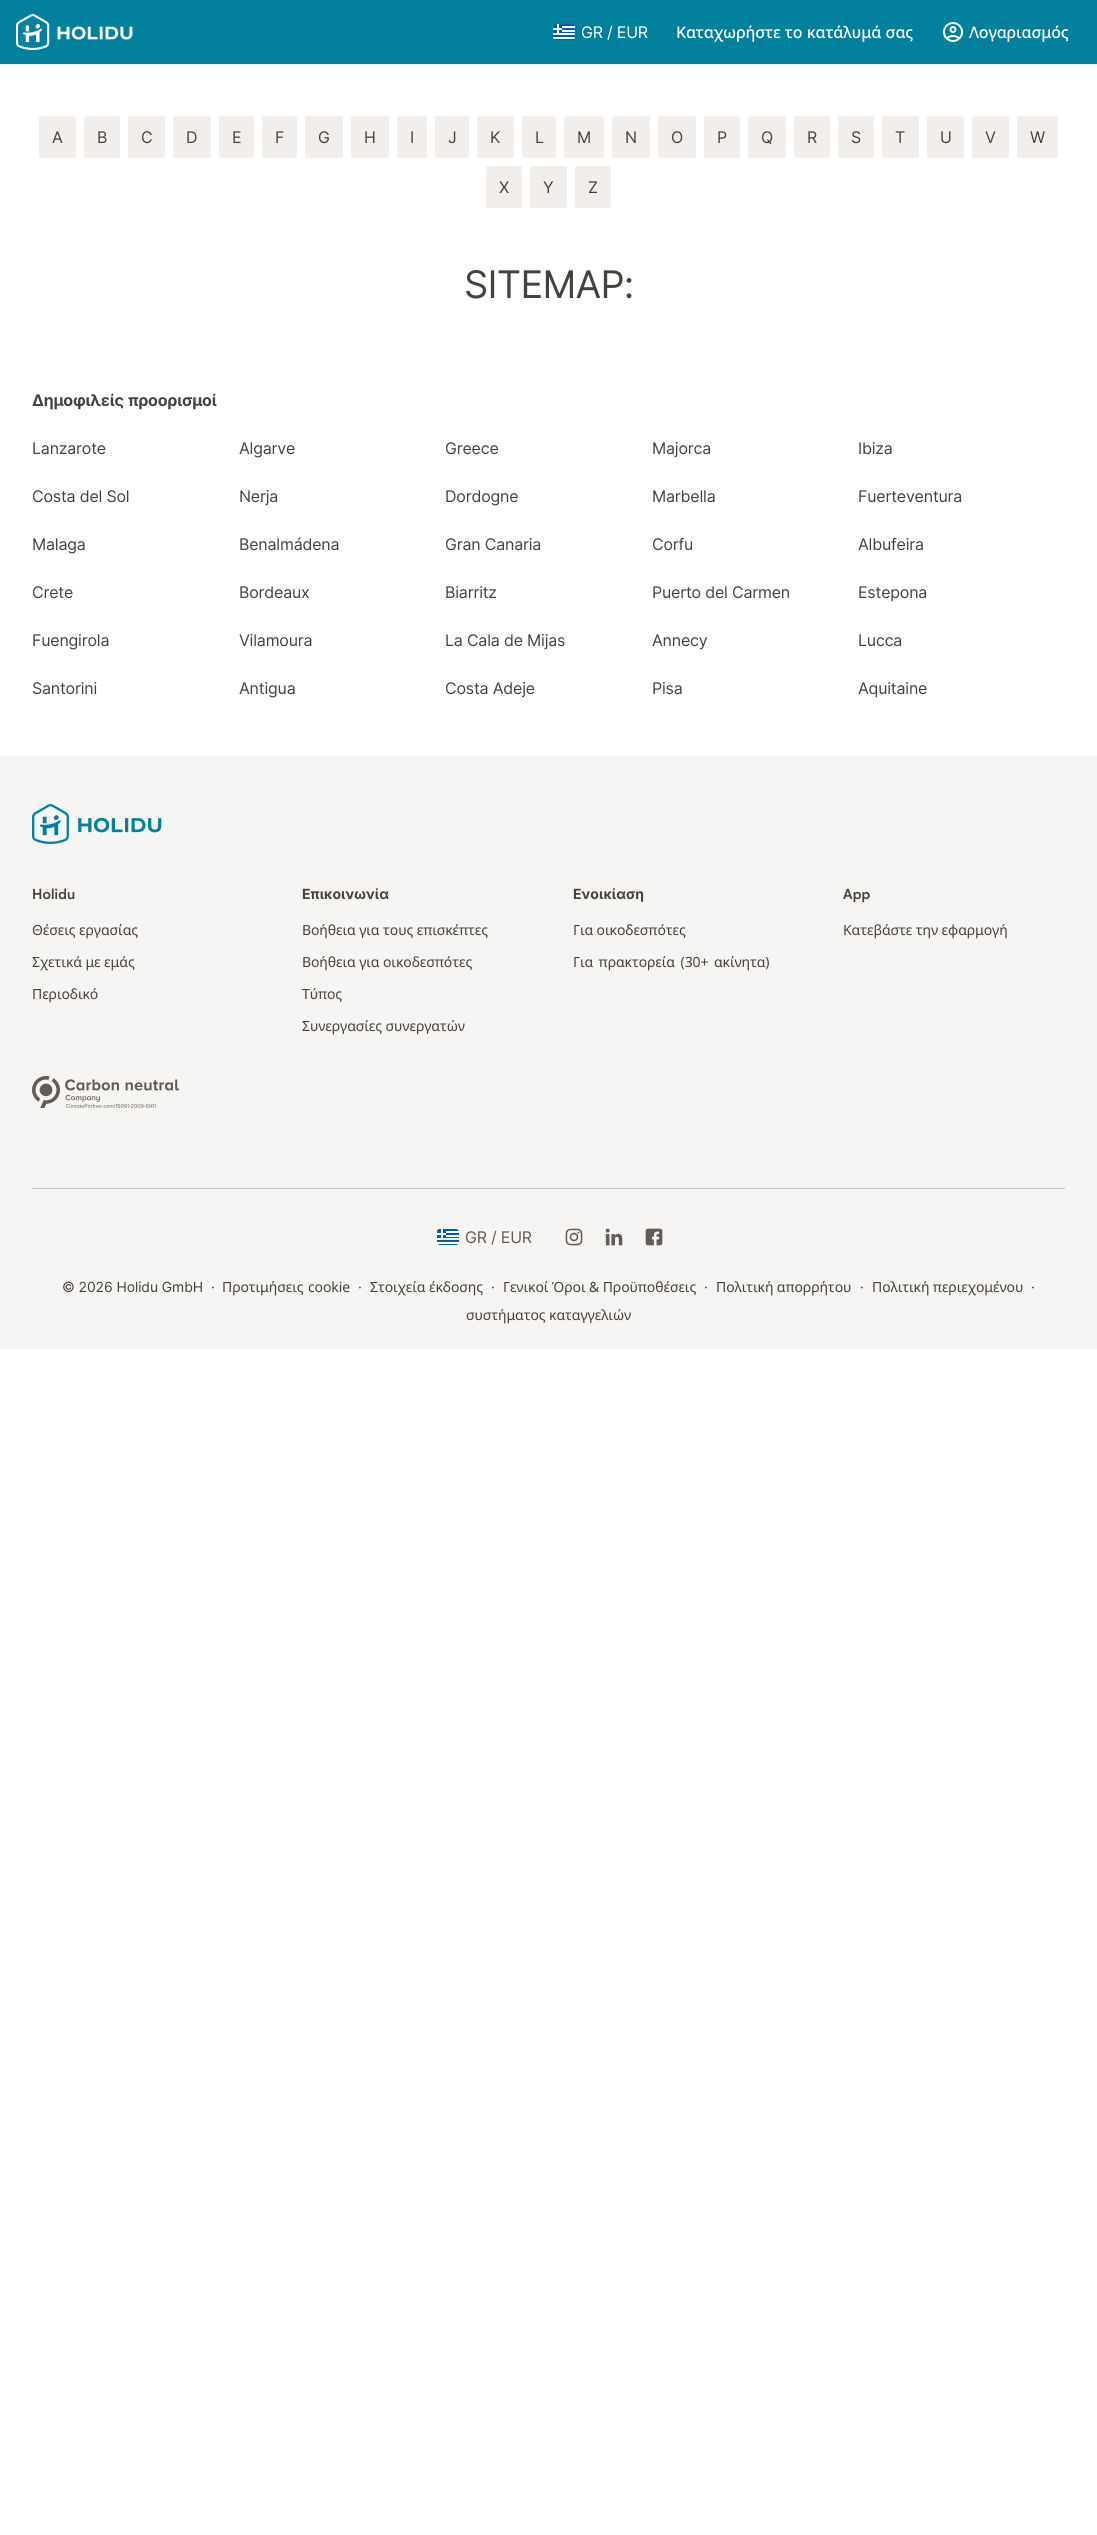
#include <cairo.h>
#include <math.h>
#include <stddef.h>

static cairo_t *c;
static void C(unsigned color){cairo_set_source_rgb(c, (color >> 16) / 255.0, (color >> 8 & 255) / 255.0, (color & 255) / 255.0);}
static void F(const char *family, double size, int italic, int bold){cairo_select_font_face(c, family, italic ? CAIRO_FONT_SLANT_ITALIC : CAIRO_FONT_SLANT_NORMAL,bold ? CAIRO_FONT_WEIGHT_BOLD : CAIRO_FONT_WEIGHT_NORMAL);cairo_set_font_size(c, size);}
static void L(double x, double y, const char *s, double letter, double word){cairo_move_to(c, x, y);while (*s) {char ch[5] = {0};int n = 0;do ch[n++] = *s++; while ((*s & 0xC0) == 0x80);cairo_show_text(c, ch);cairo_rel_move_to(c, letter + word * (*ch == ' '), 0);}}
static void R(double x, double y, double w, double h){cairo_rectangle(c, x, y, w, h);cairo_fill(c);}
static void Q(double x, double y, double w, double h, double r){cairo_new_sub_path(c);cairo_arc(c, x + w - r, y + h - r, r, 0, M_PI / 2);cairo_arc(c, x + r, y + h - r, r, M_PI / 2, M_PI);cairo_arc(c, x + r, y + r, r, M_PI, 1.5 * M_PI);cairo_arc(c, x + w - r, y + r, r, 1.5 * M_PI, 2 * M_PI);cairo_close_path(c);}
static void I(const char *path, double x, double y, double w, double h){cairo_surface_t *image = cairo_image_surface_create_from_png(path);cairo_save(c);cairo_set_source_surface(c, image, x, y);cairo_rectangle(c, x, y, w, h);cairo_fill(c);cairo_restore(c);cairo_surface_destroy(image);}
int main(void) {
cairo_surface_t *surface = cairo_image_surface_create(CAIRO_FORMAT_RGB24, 1097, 2535);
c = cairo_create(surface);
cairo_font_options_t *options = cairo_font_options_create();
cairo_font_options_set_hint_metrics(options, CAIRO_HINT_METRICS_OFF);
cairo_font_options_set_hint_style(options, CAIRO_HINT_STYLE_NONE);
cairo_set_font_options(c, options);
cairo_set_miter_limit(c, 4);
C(0xffffff);
cairo_paint(c);
C(0x00809d);
R(0,0,1097,64);
I("1.png",16,14,117,36);
I("2.png",553,24,22,16);
F("Inter",16,0,0);
C(0xffffff);
L(581,38,"GR / EUR",-.2,0);
F("Noto Sans Medium",16,0,0);
L(676,38,"Καταχωρήστε το κατάλυμά σας",-.2,.5);
I("3.png",943,22,20,20);
L(969,38,"Λογαριασμός",-.2,0);
C(0xf1eeeb);
Q(39.5,116.5,36,41,1.5);
cairo_fill_preserve(c);
cairo_set_line_width(c,1);
cairo_stroke(c);
F("Inter",16,0,0);
C(0x45423e);
L(52,143,"A",-.2,0);
C(0xf1eeeb);
Q(84.5,116.5,35,41,1.5);
cairo_fill_preserve(c);
cairo_stroke(c);
C(0x45423e);
L(97,143,"B",-.2,0);
C(0xf1eeeb);
Q(128.5,116.5,36,41,1.5);
cairo_fill_preserve(c);
cairo_stroke(c);
C(0x45423e);
L(141,143,"C",-.2,0);
C(0xf1eeeb);
Q(173.5,116.5,37,41,1.5);
cairo_fill_preserve(c);
cairo_stroke(c);
C(0x45423e);
L(186,143,"D",-.2,0);
C(0xf1eeeb);
Q(219.5,116.5,34,41,1.5);
cairo_fill_preserve(c);
cairo_stroke(c);
C(0x45423e);
L(232,143,"E",-.2,0);
C(0xf1eeeb);
Q(262.5,116.5,34,41,1.5);
cairo_fill_preserve(c);
cairo_stroke(c);
C(0x45423e);
L(275,143,"F",-.2,0);
C(0xf1eeeb);
Q(305.5,116.5,37,41,1.5);
cairo_fill_preserve(c);
cairo_stroke(c);
C(0x45423e);
L(318,143,"G",-.2,0);
C(0xf1eeeb);
Q(351.5,116.5,37,41,1.5);
cairo_fill_preserve(c);
cairo_stroke(c);
C(0x45423e);
L(364,143,"H",-.2,0);
C(0xf1eeeb);
Q(397.5,116.5,29,41,1.5);
cairo_fill_preserve(c);
cairo_stroke(c);
C(0x45423e);
L(410,143,"I",-.2,0);
C(0xf1eeeb);
Q(435.5,116.5,33,41,1.5);
cairo_fill_preserve(c);
cairo_stroke(c);
C(0x45423e);
L(448,143,"J",-.2,0);
C(0xf1eeeb);
Q(477.5,116.5,36,41,1.5);
cairo_fill_preserve(c);
cairo_stroke(c);
C(0x45423e);
L(490,143,"K",-.2,0);
C(0xf1eeeb);
Q(522.5,116.5,33,41,1.5);
cairo_fill_preserve(c);
cairo_stroke(c);
C(0x45423e);
L(535,143,"L",-.2,0);
C(0xf1eeeb);
Q(564.5,116.5,39,41,1.5);
cairo_fill_preserve(c);
cairo_stroke(c);
C(0x45423e);
L(577,143,"M",-.2,0);
C(0xf1eeeb);
Q(612.5,116.5,37,41,1.5);
cairo_fill_preserve(c);
cairo_stroke(c);
C(0x45423e);
L(625,143,"N",-.2,0);
C(0xf1eeeb);
Q(658.5,116.5,37,41,1.5);
cairo_fill_preserve(c);
cairo_stroke(c);
C(0x45423e);
L(671,143,"O",-.2,0);
C(0xf1eeeb);
Q(704.5,116.5,35,41,1.5);
cairo_fill_preserve(c);
cairo_stroke(c);
C(0x45423e);
L(717,143,"P",-.2,0);
C(0xf1eeeb);
Q(748.5,116.5,37,41,1.5);
cairo_fill_preserve(c);
cairo_stroke(c);
C(0x45423e);
L(761,143,"Q",-.2,0);
C(0xf1eeeb);
Q(794.5,116.5,35,41,1.5);
cairo_fill_preserve(c);
cairo_stroke(c);
C(0x45423e);
L(807,143,"R",-.2,0);
C(0xf1eeeb);
Q(838.5,116.5,35,41,1.5);
cairo_fill_preserve(c);
cairo_stroke(c);
C(0x45423e);
L(851,143,"S",-.2,0);
C(0xf1eeeb);
Q(882.5,116.5,36,41,1.5);
cairo_fill_preserve(c);
cairo_stroke(c);
C(0x45423e);
L(895,143,"T",-.2,0);
C(0xf1eeeb);
Q(927.5,116.5,36,41,1.5);
cairo_fill_preserve(c);
cairo_stroke(c);
C(0x45423e);
L(940,143,"U",-.2,0);
C(0xf1eeeb);
Q(972.5,116.5,36,41,1.5);
cairo_fill_preserve(c);
cairo_stroke(c);
C(0x45423e);
L(985,143,"V",-.2,0);
C(0xf1eeeb);
Q(1017.5,116.5,40,41,1.5);
cairo_fill_preserve(c);
cairo_stroke(c);
C(0x45423e);
L(1030,143,"W",-.2,0);
C(0xf1eeeb);
Q(486.5,166.5,35,41,1.5);
cairo_fill_preserve(c);
cairo_stroke(c);
C(0x45423e);
L(499,193,"X",-.2,0);
C(0xf1eeeb);
Q(530.5,166.5,36,41,1.5);
cairo_fill_preserve(c);
cairo_stroke(c);
C(0x45423e);
L(543,193,"Y",-.2,0);
C(0xf1eeeb);
Q(575.5,166.5,35,41,1.5);
cairo_fill_preserve(c);
cairo_stroke(c);
C(0x45423e);
L(588,193,"Z",-.2,0);
F("Inter",38,0,0);
L(464,298,"SITEMAP:",-.75,0);
F("Inter",16,0,1);
L(32,406,"Δημοφιλείς προορισμοί",-.2,1);
F("Inter",16,0,0);
L(32,454,"Lanzarote",-.2,0);
L(239,454,"Algarve",-.2,0);
L(445,454,"Greece",-.2,0);
L(652,454,"Majorca",-.2,0);
L(858,454,"Ibiza",-.2,0);
L(32,502,"Costa del Sol",-.2,0);
L(239,502,"Nerja",-.2,0);
L(445,502,"Dordogne",-.2,0);
L(652,502,"Marbella",-.2,0);
L(858,502,"Fuerteventura",-.2,0);
L(32,550,"Malaga",-.2,0);
L(239,550,"Benalmádena",-.2,0);
L(445,550,"Gran Canaria",-.2,0);
L(652,550,"Corfu",-.2,0);
L(858,550,"Albufeira",-.2,0);
L(32,598,"Crete",-.2,0);
L(239,598,"Bordeaux",-.2,0);
L(445,598,"Biarritz",-.2,0);
L(652,598,"Puerto del Carmen",-.2,0);
L(858,598,"Estepona",-.2,0);
L(32,646,"Fuengirola",-.2,0);
L(239,646,"Vilamoura",-.2,0);
L(445,646,"La Cala de Mijas",-.2,0);
L(652,646,"Annecy",-.2,0);
L(858,646,"Lucca",-.2,0);
L(32,694,"Santorini",-.2,0);
L(239,694,"Antigua",-.2,0);
L(445,694,"Costa Adeje",-.2,0);
L(652,694,"Pisa",-.2,0);
L(858,694,"Aquitaine",-.2,0);
C(0xf7f5f3);
R(0,756,1097,593);
I("4.png",32,804,130,40);
F("Satoshi",14,0,1);
C(0x45423e);
L(32,899,"Holidu",.1,0);
F("Noto Sans",14,0,0);
L(32,935,"Θέσεις εργασίας",-.1,0);
L(32,967,"Σχετικά με εμάς",-.1,0);
L(32,999,"Περιοδικό",-.1,0);
F("Inter",14,0,1);
L(302,899,"Επικοινωνία",.1,0);
F("Noto Sans",14,0,0);
L(302,935,"Βοήθεια για τους επισκέπτες",-.1,0);
L(302,967,"Βοήθεια για οικοδεσπότες",-.1,0);
L(302,999,"Τύπος",-.1,0);
L(302,1031,"Συνεργασίες συνεργατών",-.1,0);
F("Inter",14,0,1);
L(573,899,"Ενοικίαση",.1,0);
F("Noto Sans",14,0,0);
L(573,935,"Για οικοδεσπότες",-.1,0);
L(573,967,"Για πρακτορεία (30+ ακίνητα)",-.1,2);
F("Satoshi",14,0,1);
L(843,899,"App",.1,0);
F("Noto Sans",14,0,0);
L(843,935,"Κατεβάστε την εφαρμογή",-.1,0);
I("5.png",32,1076,147,32);
C(0xc6c4c2);
R(32,1188,1033,1);
I("6.png",437,1229,22,16);
F("Inter",16,0,0);
C(0x605c57);
L(465,1243,"GR / EUR",-.2,0);
I("7.png",565,1228,18,18);
I("8.png",605,1228,18,18);
I("9.png",645,1228,18,18);
F("Inter",14,0,0);
C(0x45423e);
L(62,1292,"© 2026 Holidu GmbH",-.1,0);
L(211,1292,"·",-.1,0);
F("Noto Sans",14,0,0);
L(222,1292,"Προτιμήσεις cookie",-.1,1);
F("Inter",14,0,0);
L(358,1292,"·",-.1,0);
F("Noto Sans",14,0,0);
L(370,1292,"Στοιχεία έκδοσης",-.1,0);
F("Inter",14,0,0);
L(491,1292,"·",-.1,0);
F("Noto Sans",14,0,0);
L(503,1292,"Γενικοί Όροι & Προϋποθέσεις",-.1,0);
F("Inter",14,0,0);
L(704,1292,"·",-.1,0);
F("Noto Sans",14,0,0);
L(716,1292,"Πολιτική απορρήτου",-.1,0);
F("Inter",14,0,0);
L(860,1292,"·",-.1,0);
F("Noto Sans",14,0,0);
L(872,1292,"Πολιτική περιεχομένου",-.1,0);
F("Inter",14,0,0);
L(1031,1292,"·",-.1,0);
F("Noto Sans",14,0,0);
L(466,1320,"συστήματος καταγγελιών",-.1,0);
cairo_surface_write_to_png(surface, "o.png");
cairo_font_options_destroy(options);
cairo_destroy(c);
cairo_surface_destroy(surface);
return 0;
}
